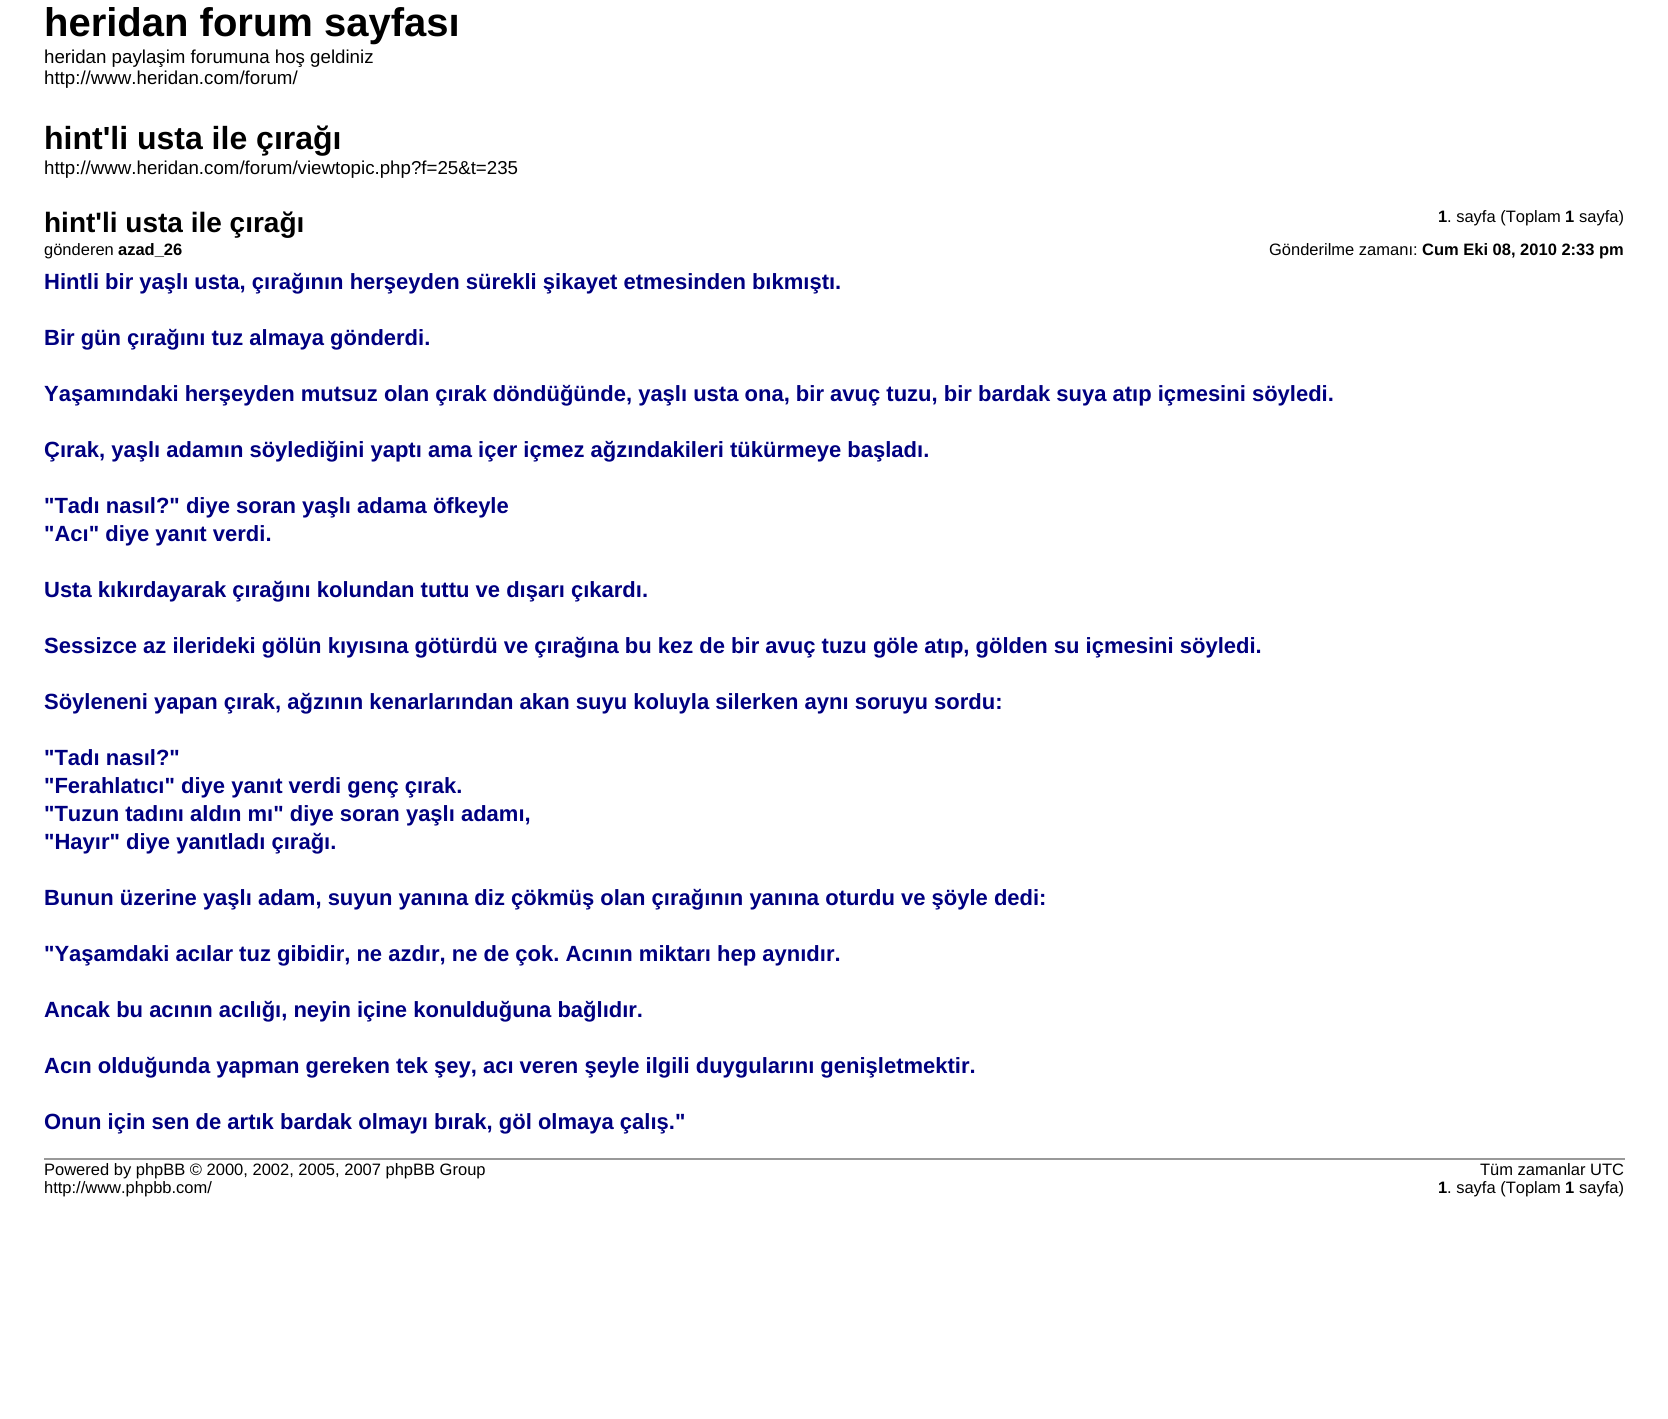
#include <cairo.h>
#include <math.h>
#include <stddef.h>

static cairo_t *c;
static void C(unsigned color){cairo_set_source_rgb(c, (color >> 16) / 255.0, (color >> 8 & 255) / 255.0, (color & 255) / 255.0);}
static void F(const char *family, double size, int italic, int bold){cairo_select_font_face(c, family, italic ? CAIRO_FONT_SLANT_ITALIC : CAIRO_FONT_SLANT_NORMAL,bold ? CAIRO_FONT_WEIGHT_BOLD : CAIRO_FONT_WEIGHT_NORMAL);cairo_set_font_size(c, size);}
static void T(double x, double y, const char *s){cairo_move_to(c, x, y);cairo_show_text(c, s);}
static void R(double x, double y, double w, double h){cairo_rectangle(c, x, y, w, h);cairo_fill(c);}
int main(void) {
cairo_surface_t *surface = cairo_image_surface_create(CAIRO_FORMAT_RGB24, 1668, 1419);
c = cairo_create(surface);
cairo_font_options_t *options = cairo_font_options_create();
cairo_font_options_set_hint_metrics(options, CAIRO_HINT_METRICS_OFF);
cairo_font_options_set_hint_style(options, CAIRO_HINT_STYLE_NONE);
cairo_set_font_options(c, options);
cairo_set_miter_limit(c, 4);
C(0xffffff);
cairo_paint(c);
F("Liberation Sans",40,0,1);
C(0x000000);
T(44,36,"heridan forum sayfası");
F("Liberation Sans",18.7,0,0);
T(44,63,"heridan paylaşim forumuna hoş geldiniz");
T(44,84,"http://www.heridan.com/forum/");
F("Liberation Sans",32,0,1);
T(44,149,"hint'li usta ile çırağı");
F("Liberation Sans",18.7,0,0);
T(44,174,"http://www.heridan.com/forum/viewtopic.php?f=25&t=235");
F("Liberation Sans",16.5,0,1);
T(1438,222,"1");
F("Liberation Sans",16.5,0,0);
T(1447,222,". sayfa (Toplam");
F("Liberation Sans",16.5,0,1);
T(1565,222,"1");
F("Liberation Sans",16.5,0,0);
T(1579,222,"sayfa)");
F("Liberation Sans",28,0,1);
T(44,232,"hint'li usta ile çırağı");
F("Liberation Sans",16.5,0,0);
T(44,255,"gönderen");
F("Liberation Sans",16.5,0,1);
T(118,255,"azad_26");
F("Liberation Sans",16.5,0,0);
T(1269,255,"Gönderilme zamanı:");
F("Liberation Sans",16.5,0,1);
T(1422,255,"Cum Eki 08, 2010 2:33 pm");
F("Liberation Sans",22,0,1);
C(0x000080);
T(44,289,"Hintli bir yaşlı usta, çırağının herşeyden sürekli şikayet etmesinden bıkmıştı.");
T(44,345,"Bir gün çırağını tuz almaya gönderdi.");
T(44,401,"Yaşamındaki herşeyden mutsuz olan çırak döndüğünde, yaşlı usta ona, bir avuç tuzu, bir bardak suya atıp içmesini söyledi.");
T(44,457,"Çırak, yaşlı adamın söylediğini yaptı ama içer içmez ağzındakileri tükürmeye başladı.");
T(44,513,"\"Tadı nasıl?\" diye soran yaşlı adama öfkeyle");
T(44,541,"\"Acı\" diye yanıt verdi.");
T(44,597,"Usta kıkırdayarak çırağını kolundan tuttu ve dışarı çıkardı.");
T(44,653,"Sessizce az ilerideki gölün kıyısına götürdü ve çırağına bu kez de bir avuç tuzu göle atıp, gölden su içmesini söyledi.");
T(44,709,"Söyleneni yapan çırak, ağzının kenarlarından akan suyu koluyla silerken aynı soruyu sordu:");
T(44,765,"\"Tadı nasıl?\"");
T(44,793,"\"Ferahlatıcı\" diye yanıt verdi genç çırak.");
T(44,821,"\"Tuzun tadını aldın mı\" diye soran yaşlı adamı,");
T(44,849,"\"Hayır\" diye yanıtladı çırağı.");
T(44,905,"Bunun üzerine yaşlı adam, suyun yanına diz çökmüş olan çırağının yanına oturdu ve şöyle dedi:");
T(44,961,"\"Yaşamdaki acılar tuz gibidir, ne azdır, ne de çok. Acının miktarı hep aynıdır.");
T(44,1017,"Ancak bu acının acılığı, neyin içine konulduğuna bağlıdır.");
T(44,1073,"Acın olduğunda yapman gereken tek şey, acı veren şeyle ilgili duygularını genişletmektir.");
T(44,1129,"Onun için sen de artık bardak olmayı bırak, göl olmaya çalış.\"");
C(0x999999);
R(44,1158,1581,2);
F("Liberation Sans",16.5,0,0);
C(0x000000);
T(44,1175,"Powered by phpBB © 2000, 2002, 2005, 2007 phpBB Group");
T(44,1193,"http://www.phpbb.com/");
T(1480,1175,"Tüm zamanlar UTC");
F("Liberation Sans",16.5,0,1);
T(1438,1193,"1");
F("Liberation Sans",16.5,0,0);
T(1447,1193,". sayfa (Toplam");
F("Liberation Sans",16.5,0,1);
T(1565,1193,"1");
F("Liberation Sans",16.5,0,0);
T(1579,1193,"sayfa)");
cairo_surface_write_to_png(surface, "o.png");
cairo_font_options_destroy(options);
cairo_destroy(c);
cairo_surface_destroy(surface);
return 0;
}
